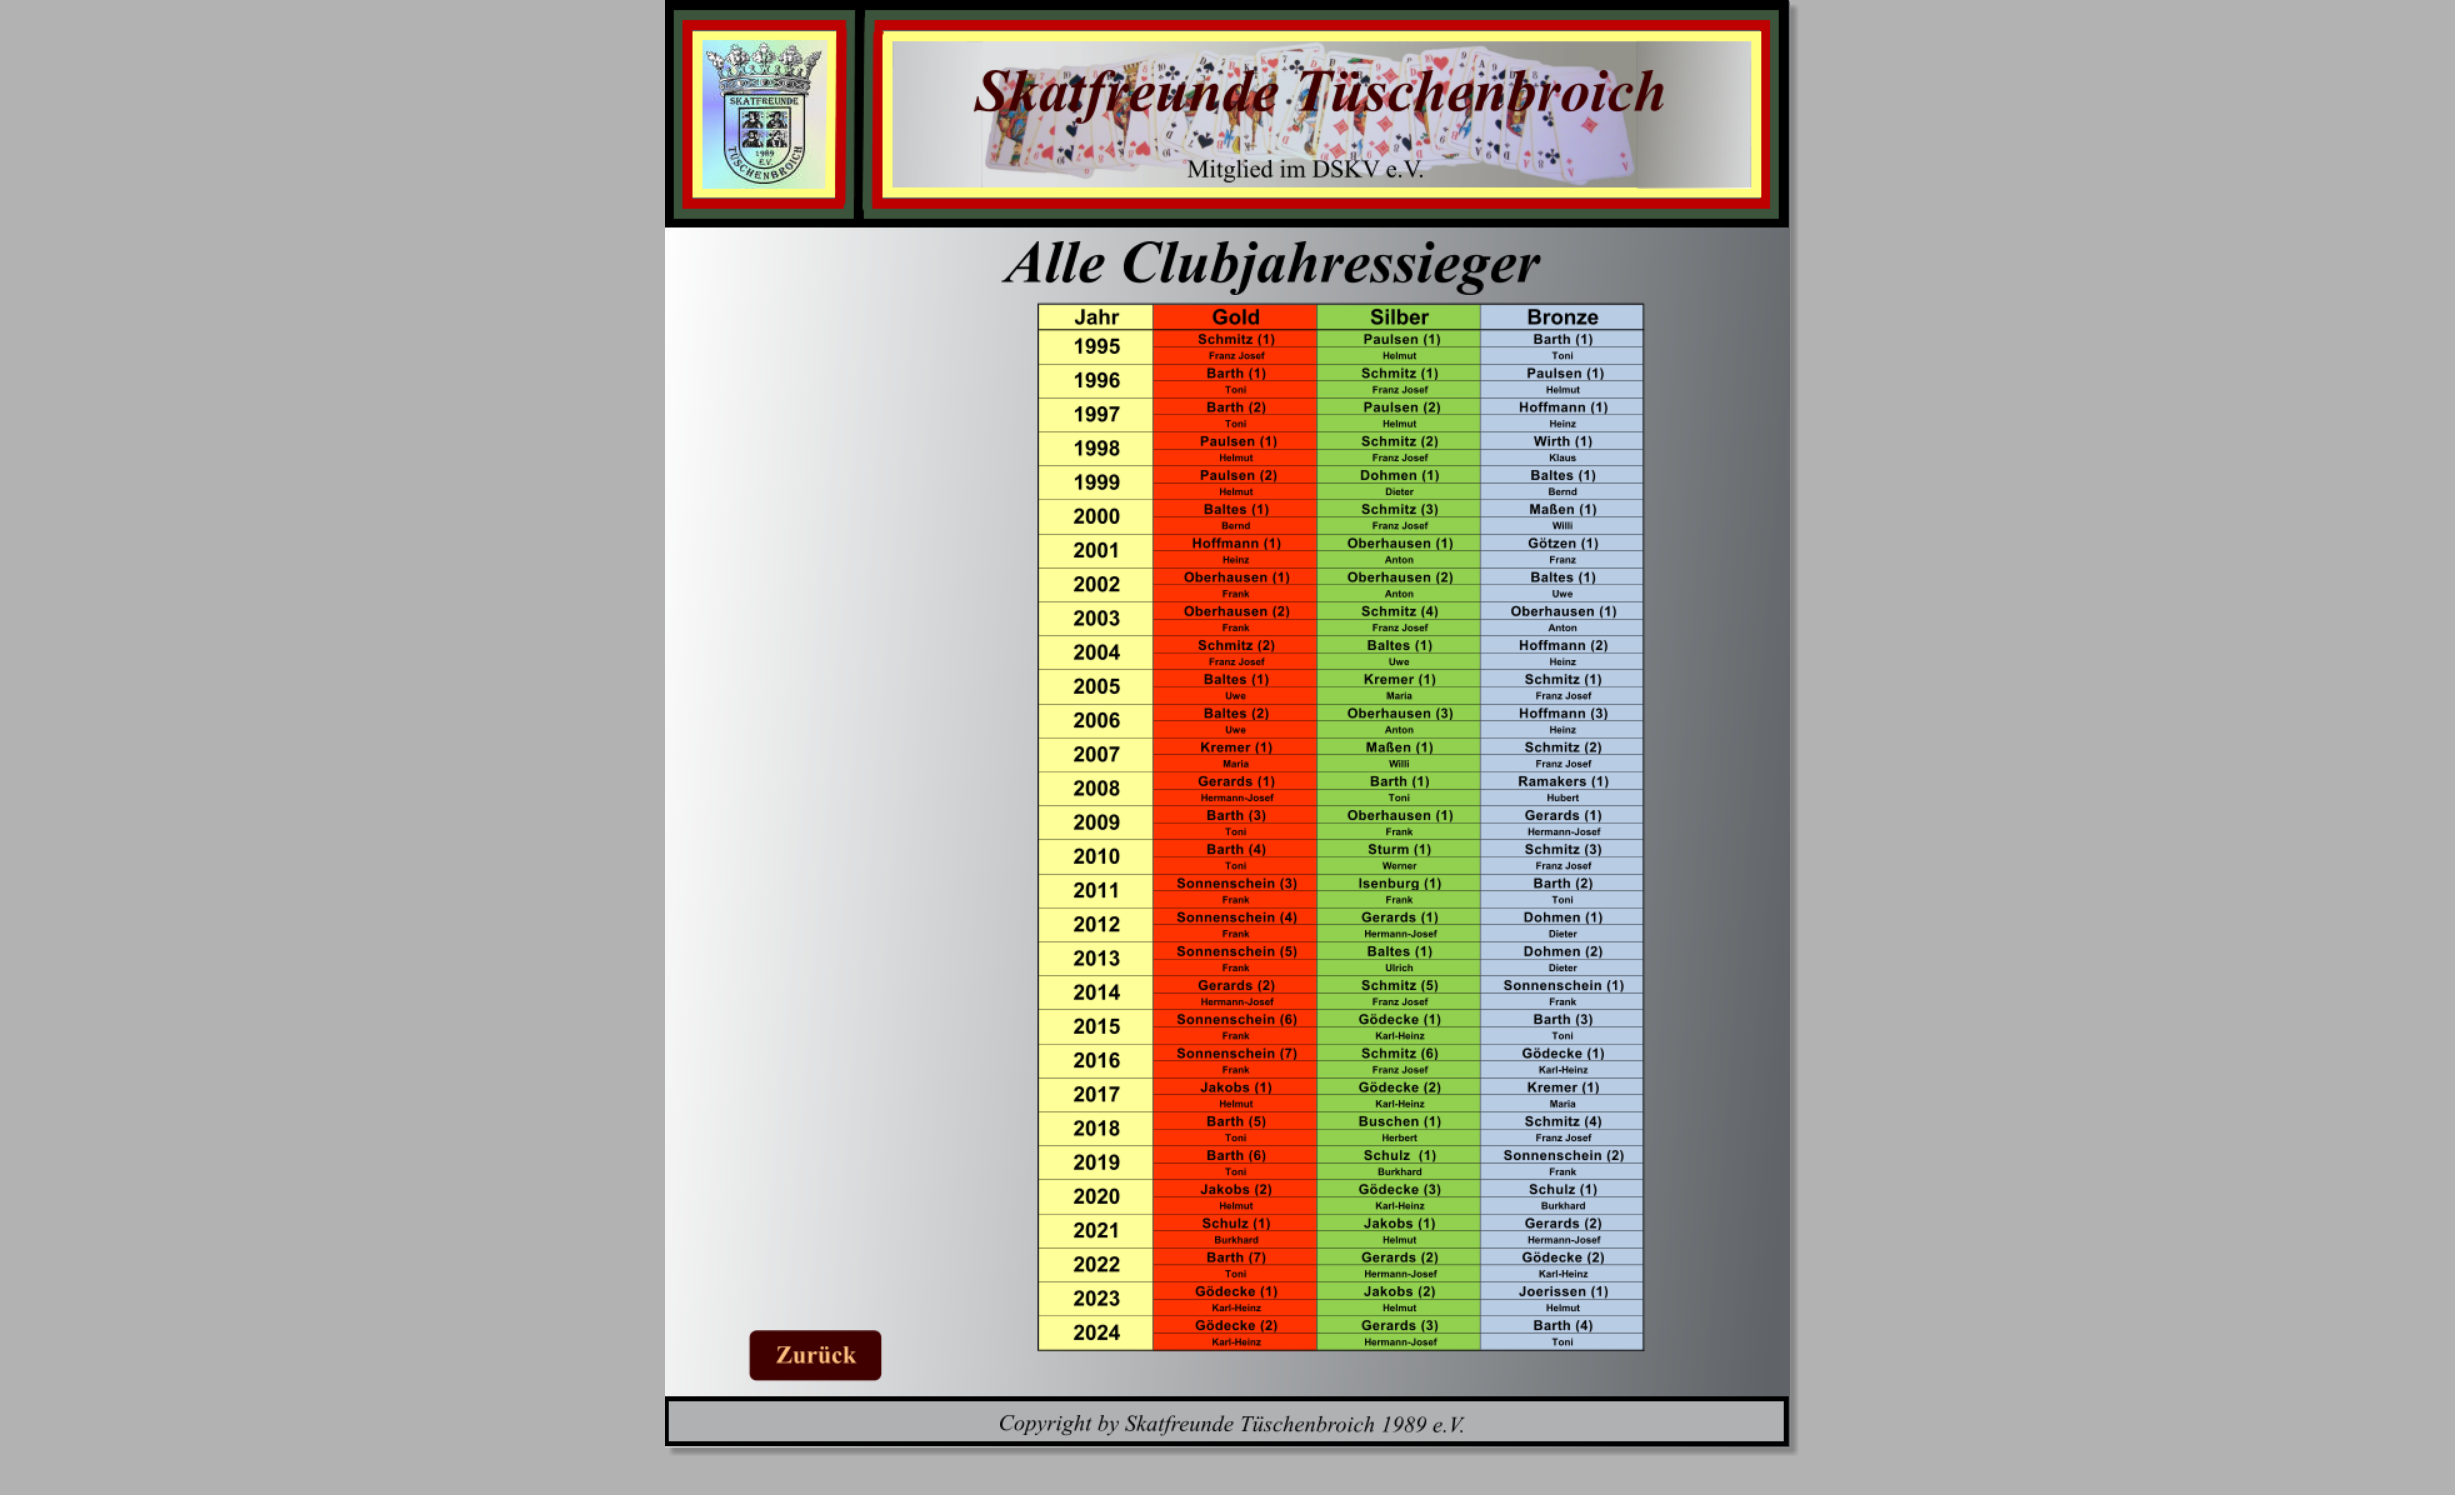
#include <cairo.h>
#include <math.h>
#include <stddef.h>

static cairo_t *c;
static void C(unsigned color){cairo_set_source_rgb(c, (color >> 16) / 255.0, (color >> 8 & 255) / 255.0, (color & 255) / 255.0);}
static void I(const char *path, double x, double y, double w, double h){cairo_surface_t *image = cairo_image_surface_create_from_png(path);cairo_save(c);cairo_set_source_surface(c, image, x, y);cairo_rectangle(c, x, y, w, h);cairo_fill(c);cairo_restore(c);cairo_surface_destroy(image);}
int main(void) {
cairo_surface_t *surface = cairo_image_surface_create(CAIRO_FORMAT_RGB24, 2455, 1495);
c = cairo_create(surface);
cairo_font_options_t *options = cairo_font_options_create();
cairo_font_options_set_hint_metrics(options, CAIRO_HINT_METRICS_OFF);
cairo_font_options_set_hint_style(options, CAIRO_HINT_STYLE_NONE);
cairo_set_font_options(c, options);
cairo_set_miter_limit(c, 4);
C(0xb2b2b2);
cairo_paint(c);
I("222.png",669,4,1130,1452);
I("2.png",665,1,1125,1447);
I("1.png",665,0,1124,228);
I("3.png",1001,241,541,54);
I("5.png",1038,303,116,1049);
I("6.png",1152,303,166,1049);
I("7.png",1316,303,166,1049);
I("8.png",1479,303,165,1049);
I("9.png",1073,308,48,18);
I("10.png",1212,308,48,18);
I("11.png",1370,308,60,18);
I("12.png",1527,308,72,18);
I("13.png",1074,337,47,17);
I("14.png",1197,333,79,14);
I("15.png",1363,333,78,14);
I("16.png",1533,333,60,14);
I("17.png",1208,351,58,10);
I("18.png",1382,351,35,10);
I("19.png",1551,351,23,10);
I("20.png",1074,371,47,18);
I("21.png",1206,367,61,13);
I("22.png",1361,367,78,13);
I("23.png",1527,367,77,13);
I("24.png",1224,385,23,9);
I("25.png",1372,385,57,9);
I("26.png",1546,385,35,9);
I("27.png",1074,406,47,17);
I("28.png",1206,401,61,14);
I("29.png",1363,401,78,14);
I("30.png",1519,401,89,14);
I("31.png",1224,419,23,9);
I("32.png",1382,419,35,9);
I("33.png",1549,419,28,9);
I("34.png",1074,439,47,18);
I("35.png",1200,435,78,14);
I("36.png",1361,435,78,14);
I("37.png",1533,435,60,14);
I("38.png",1219,453,35,9);
I("39.png",1372,453,57,9);
I("40.png",1549,453,28,9);
I("41.png",1074,473,47,18);
I("42.png",1200,469,78,14);
I("43.png",1360,469,79,14);
I("44.png",1531,469,66,14);
I("45.png",1219,487,35,10);
I("46.png",1385,487,29,10);
I("47.png",1548,487,30,10);
I("48.png",1073,507,48,17);
I("49.png",1203,503,66,14);
I("50.png",1361,503,78,14);
I("51.png",1529,503,68,14);
I("52.png",1221,521,30,10);
I("53.png",1372,521,57,10);
I("54.png",1552,521,21,10);
I("55.png",1073,541,45,18);
I("56.png",1192,537,90,13);
I("57.png",1347,537,106,13);
I("58.png",1527,537,72,13);
I("59.png",1222,555,28,9);
I("60.png",1384,555,30,9);
I("61.png",1549,555,28,9);
I("62.png",1073,576,48,17);
I("63.png",1183,571,108,14);
I("64.png",1347,571,106,14);
I("65.png",1531,571,66,14);
I("66.png",1222,589,28,9);
I("67.png",1384,589,30,9);
I("68.png",1552,589,21,9);
I("69.png",1073,609,48,18);
I("70.png",1183,605,108,14);
I("71.png",1361,605,78,14);
I("72.png",1511,605,106,14);
I("73.png",1222,623,28,9);
I("39.png",1372,623,57,9);
I("74.png",1547,623,31,9);
I("75.png",1073,643,48,18);
I("76.png",1197,639,79,14);
I("77.png",1367,639,66,14);
I("78.png",1519,639,89,14);
I("79.png",1208,657,58,10);
I("80.png",1388,657,22,10);
I("81.png",1549,657,28,10);
I("82.png",1073,677,48,18);
I("83.png",1203,673,66,14);
I("84.png",1363,673,74,14);
I("85.png",1524,673,78,14);
I("86.png",1225,691,22,10);
I("87.png",1386,691,27,10);
I("88.png",1536,691,57,10);
I("89.png",1073,711,48,18);
I("90.png",1203,707,66,13);
I("91.png",1347,707,106,13);
I("92.png",1519,707,89,13);
I("93.png",1225,725,22,9);
I("94.png",1384,725,30,9);
I("95.png",1549,725,28,9);
I("96.png",1073,746,48,17);
I("97.png",1201,741,72,14);
I("98.png",1366,741,67,14);
I("99.png",1524,741,78,14);
I("100.png",1222,759,27,9);
I("101.png",1388,759,21,9);
I("102.png",1536,759,57,9);
I("103.png",1073,779,48,18);
I("104.png",1197,775,79,14);
I("105.png",1370,775,59,14);
I("106.png",1518,775,91,14);
I("107.png",1201,793,73,9);
I("108.png",1387,793,24,9);
I("109.png",1547,793,32,9);
I("110.png",1073,813,48,18);
I("111.png",1206,809,61,14);
I("112.png",1347,809,106,14);
I("113.png",1524,809,78,14);
I("114.png",1224,827,23,10);
I("115.png",1386,827,27,10);
I("116.png",1527,827,75,10);
I("117.png",1073,847,48,18);
I("118.png",1206,843,61,14);
I("119.png",1367,843,65,14);
I("120.png",1524,843,78,14);
I("121.png",1224,861,23,10);
I("122.png",1382,861,36,10);
I("88.png",1536,861,57,10);
I("123.png",1073,881,45,18);
I("124.png",1176,877,122,13);
I("125.png",1358,877,84,13);
I("126.png",1533,877,60,13);
I("127.png",1222,895,28,9);
I("128.png",1386,895,28,9);
I("129.png",1551,895,23,9);
I("130.png",1073,916,48,17);
I("131.png",1176,911,122,14);
I("132.png",1361,911,78,14);
I("133.png",1523,911,80,14);
I("134.png",1222,929,28,9);
I("135.png",1364,929,74,9);
I("136.png",1548,929,30,9);
I("137.png",1073,949,48,18);
I("138.png",1176,945,122,14);
I("139.png",1367,945,66,14);
I("140.png",1523,945,80,14);
I("141.png",1222,963,28,9);
I("142.png",1385,963,29,9);
I("143.png",1548,963,30,9);
I("144.png",1073,983,48,18);
I("145.png",1197,979,79,14);
I("146.png",1361,979,78,14);
I("147.png",1503,979,121,14);
I("148.png",1201,997,73,10);
I("149.png",1372,997,57,10);
I("150.png",1548,997,29,10);
I("151.png",1073,1017,48,18);
I("152.png",1176,1013,122,14);
I("153.png",1358,1013,84,14);
I("154.png",1533,1013,60,14);
I("155.png",1222,1031,28,10);
I("156.png",1375,1031,51,10);
I("157.png",1551,1031,23,10);
I("158.png",1073,1051,48,18);
I("159.png",1176,1047,122,13);
I("160.png",1361,1047,78,13);
I("161.png",1522,1047,82,13);
I("162.png",1222,1065,28,9);
I("163.png",1372,1065,57,9);
I("164.png",1538,1065,51,9);
I("165.png",1073,1086,48,17);
I("166.png",1200,1081,72,14);
I("167.png",1358,1081,84,14);
I("168.png",1527,1081,72,14);
I("169.png",1219,1099,35,9);
I("170.png",1375,1099,51,9);
I("171.png",1549,1099,28,9);
I("172.png",1073,1119,48,18);
I("173.png",1206,1115,61,14);
I("174.png",1358,1115,84,14);
I("175.png",1524,1115,78,14);
I("176.png",1224,1133,23,9);
I("177.png",1382,1133,36,9);
I("178.png",1536,1133,57,9);
I("179.png",1073,1153,48,18);
I("180.png",1206,1149,61,14);
I("181.png",1363,1149,74,14);
I("182.png",1503,1149,121,14);
I("183.png",1224,1167,23,10);
I("184.png",1377,1167,46,10);
I("150.png",1548,1167,29,10);
I("185.png",1073,1187,48,18);
I("186.png",1200,1183,72,14);
I("187.png",1358,1183,84,14);
I("188.png",1528,1183,70,14);
I("189.png",1219,1201,35,10);
I("156.png",1375,1201,51,10);
I("190.png",1541,1201,45,10);
I("191.png",1073,1221,45,18);
I("192.png",1202,1217,69,13);
I("193.png",1363,1217,73,13);
I("194.png",1524,1217,78,13);
I("195.png",1214,1235,45,9);
I("196.png",1382,1235,35,9);
I("197.png",1527,1235,75,9);
I("198.png",1073,1256,48,17);
I("199.png",1206,1251,61,14);
I("200.png",1361,1251,78,14);
I("201.png",1522,1251,82,14);
I("202.png",1224,1269,23,9);
I("203.png",1364,1269,74,9);
I("204.png",1538,1269,51,9);
I("205.png",1073,1289,48,18);
I("206.png",1194,1285,84,14);
I("207.png",1363,1285,73,14);
I("208.png",1518,1285,91,14);
I("209.png",1212,1303,50,10);
I("210.png",1382,1303,35,10);
I("211.png",1546,1303,35,9);
I("213.png",1073,1323,48,18);
I("214.png",1194,1319,84,14);
I("215.png",1361,1319,78,14);
I("216.png",1533,1319,60,14);
I("217.png",1212,1337,50,10);
I("218.png",1364,1337,74,10);
I("219.png",1551,1337,23,10);
I("4.png",1037,302,609,1050);
I("212.png",748,1330,135,52);
I("220.png",665,1396,1124,51);
I("221.png",1000,1414,465,23);
cairo_surface_write_to_png(surface, "o.png");
cairo_font_options_destroy(options);
cairo_destroy(c);
cairo_surface_destroy(surface);
return 0;
}
